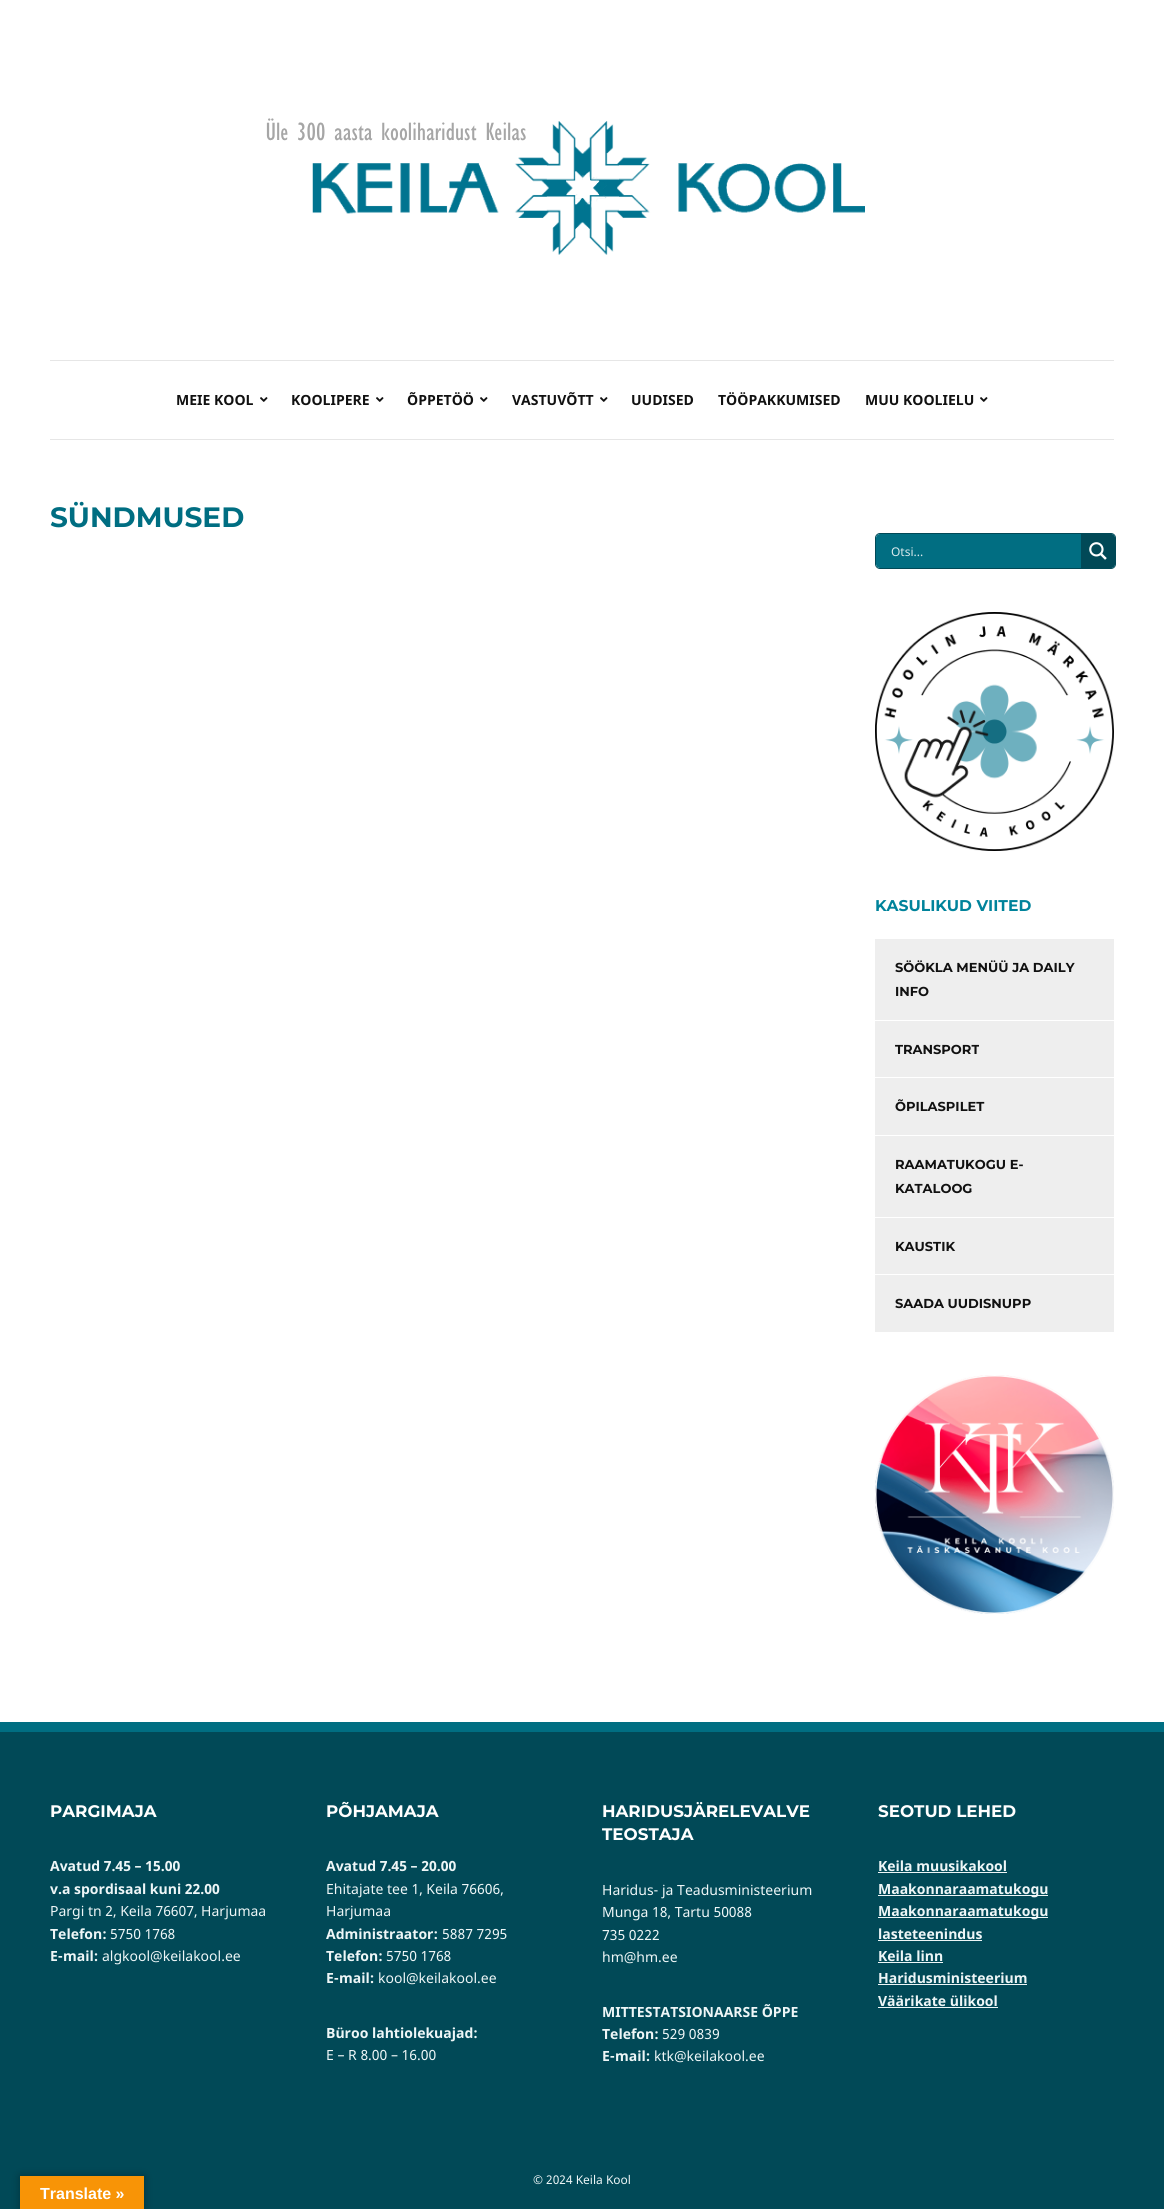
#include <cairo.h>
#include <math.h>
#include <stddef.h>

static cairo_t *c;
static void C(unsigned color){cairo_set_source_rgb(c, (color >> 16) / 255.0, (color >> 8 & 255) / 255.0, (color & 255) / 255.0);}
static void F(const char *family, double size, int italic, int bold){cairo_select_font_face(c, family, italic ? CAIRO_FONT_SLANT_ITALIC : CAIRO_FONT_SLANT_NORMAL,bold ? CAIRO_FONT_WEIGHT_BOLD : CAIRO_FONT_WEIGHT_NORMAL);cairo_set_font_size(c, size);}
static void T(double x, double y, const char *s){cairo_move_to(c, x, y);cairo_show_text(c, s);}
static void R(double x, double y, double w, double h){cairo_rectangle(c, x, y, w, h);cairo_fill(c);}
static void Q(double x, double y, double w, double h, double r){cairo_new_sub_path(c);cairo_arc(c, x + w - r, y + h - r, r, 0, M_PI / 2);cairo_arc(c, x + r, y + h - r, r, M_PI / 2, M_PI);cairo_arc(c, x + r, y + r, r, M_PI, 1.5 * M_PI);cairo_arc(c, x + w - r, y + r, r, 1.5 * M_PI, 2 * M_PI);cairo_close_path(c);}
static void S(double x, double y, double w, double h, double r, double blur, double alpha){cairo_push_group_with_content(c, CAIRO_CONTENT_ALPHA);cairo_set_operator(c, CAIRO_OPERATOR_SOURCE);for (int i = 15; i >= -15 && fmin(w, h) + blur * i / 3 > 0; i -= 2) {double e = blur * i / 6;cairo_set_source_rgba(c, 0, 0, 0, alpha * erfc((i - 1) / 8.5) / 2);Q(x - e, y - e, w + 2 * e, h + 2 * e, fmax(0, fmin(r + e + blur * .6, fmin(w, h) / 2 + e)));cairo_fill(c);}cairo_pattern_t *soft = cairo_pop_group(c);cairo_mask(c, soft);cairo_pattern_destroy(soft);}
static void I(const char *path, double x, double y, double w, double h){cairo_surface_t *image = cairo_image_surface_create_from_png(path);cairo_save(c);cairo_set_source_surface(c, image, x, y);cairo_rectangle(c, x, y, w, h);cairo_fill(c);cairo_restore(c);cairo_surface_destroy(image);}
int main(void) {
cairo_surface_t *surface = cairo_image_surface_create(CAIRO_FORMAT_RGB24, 1164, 2209);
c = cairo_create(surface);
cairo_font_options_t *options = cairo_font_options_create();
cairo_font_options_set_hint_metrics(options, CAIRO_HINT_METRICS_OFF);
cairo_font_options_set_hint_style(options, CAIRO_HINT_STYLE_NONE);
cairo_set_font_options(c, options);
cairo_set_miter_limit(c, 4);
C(0x014957);
cairo_paint(c);
C(0xffffff);
R(0,0,1164,1722);
I("1.png",266,118,599,137);
C(0xe6e6e6);
R(50,360,1064,1);
R(50,439,1064,1);
F("Noto Sans",14,0,1);
C(0x111111);
T(176,405,"MEIE KOOL");
I("2.png",260,397,8,5);
T(291,405,"KOOLIPERE");
I("2.png",376,397,8,5);
T(407,405,"ÕPPETÖÖ");
I("2.png",480,397,8,5);
T(512,405,"VASTUVÕTT");
I("2.png",600,397,8,5);
T(631,405,"UUDISED");
T(718,405,"TÖÖPAKKUMISED");
T(865,405,"MUU KOOLIELU");
I("2.png",980,397,8,5);
F("Montserrat Thin",28,0,0);
C(0x006e82);
T(50,527,"SÜNDMUSED");
Q(875.5,533.5,240,35,4.5);
C(0x014957);
cairo_set_line_width(c,1);
cairo_stroke(c);
C(0x016e82);
Q(876,534,239,34,4);
cairo_fill(c);
F("Noto Sans",12,0,0);
C(0xd9e9ec);
T(891,556,"Otsi...");
C(0x014957);
cairo_new_path(c);
cairo_move_to(c,1081,534);
cairo_line_to(c,1111,534);
cairo_curve_to(c,1113,534,1115,536,1115,538);
cairo_line_to(c,1115,564);
cairo_curve_to(c,1115,566,1113,568,1111,568);
cairo_line_to(c,1081,568);
cairo_close_path(c);
cairo_fill(c);
I("3.png",1089,542,18,18);
I("4.png",875,612,239,239);
F("Montserrat Thin",15.6,0,0);
C(0x00839b);
T(875,911,"KASULIKUD VIITED");
C(0xeeeeee);
R(875,939,239,81);
F("Montserrat Thin",13,0,0);
C(0x111111);
T(895,972,"SÖÖKLA MENÜÜ JA DAILY");
T(895,996,"INFO");
C(0xeeeeee);
R(875,1021,239,56);
C(0x111111);
T(895,1054,"TRANSPORT");
C(0xeeeeee);
R(875,1078,239,57);
C(0x111111);
T(895,1111,"ÕPILASPILET");
C(0xeeeeee);
R(875,1136,239,81);
C(0x111111);
T(895,1169,"RAAMATUKOGU E-");
T(895,1193,"KATALOOG");
C(0xeeeeee);
R(875,1218,239,56);
C(0x111111);
T(895,1251,"KAUSTIK");
C(0xeeeeee);
R(875,1275,239,57);
C(0x111111);
T(895,1308,"SAADA UUDISNUPP");
I("5.png",875,1375,239,239);
C(0x006e82);
R(0,1722,1164,10);
F("Montserrat Thin",16.75,0,0);
C(0xffffff);
T(50,1817,"PARGIMAJA");
F("Noto Sans",14,0,1);
C(0xeef6f7);
T(50,1871,"Avatud 7.45 – 15.00");
T(50,1894,"v.a spordisaal kuni 22.00");
F("Noto Sans",14,0,0);
T(50,1916,"Pargi tn 2, Keila 76607, Harjumaa");
F("Noto Sans",14,0,1);
T(50,1939,"Telefon:");
F("Noto Sans",14,0,0);
T(110,1939,"5750 1768");
F("Noto Sans",14,0,1);
T(50,1961,"E-mail:");
F("Noto Sans",14,0,0);
T(102,1961,"algkool@keilakool.ee");
F("Montserrat Thin",16.75,0,0);
C(0xffffff);
T(326,1817,"PÕHJAMAJA");
F("Noto Sans",14,0,1);
C(0xeef6f7);
T(326,1871,"Avatud 7.45 – 20.00");
F("Noto Sans",14,0,0);
T(326,1894,"Ehitajate tee 1, Keila 76606,");
T(326,1916,"Harjumaa");
F("Noto Sans",14,0,1);
T(326,1939,"Administraator:");
F("Noto Sans",14,0,0);
T(442,1939,"5887 7295");
F("Noto Sans",14,0,1);
T(326,1961,"Telefon:");
F("Noto Sans",14,0,0);
T(386,1961,"5750 1768");
F("Noto Sans",14,0,1);
T(326,1983,"E-mail:");
F("Noto Sans",14,0,0);
T(378,1983,"kool@keilakool.ee");
F("Noto Sans",14,0,1);
T(326,2038,"Büroo lahtiolekuajad:");
F("Noto Sans",14,0,0);
T(326,2060,"E – R 8.00 – 16.00");
F("Montserrat Thin",16.75,0,0);
C(0xffffff);
T(602,1817,"HARIDUSJÄRELEVALVE");
T(602,1840,"TEOSTAJA");
F("Noto Sans",14,0,0);
C(0xeef6f7);
T(602,1895,"Haridus- ja Teadusministeerium");
T(602,1917,"Munga 18, Tartu 50088");
T(602,1940,"735 0222");
T(602,1962,"hm@hm.ee");
F("Noto Sans",14,0,1);
T(602,2017,"MITTESTATSIONAARSE ÕPPE");
T(602,2039,"Telefon:");
F("Noto Sans",14,0,0);
T(662,2039,"529 0839");
F("Noto Sans",14,0,1);
T(602,2061,"E-mail:");
F("Noto Sans",14,0,0);
T(654,2061,"ktk@keilakool.ee");
F("Montserrat Thin",16.75,0,0);
C(0xffffff);
T(878,1817,"SEOTUD LEHED");
F("Noto Sans",14,0,1);
C(0xeef6f7);
T(878,1871,"Keila muusikakool");
R(878,1872,129,1);
R(878,1895,170,1);
T(878,1894,"Maakonnaraamatukogu");
R(878,1917,170,1);
T(878,1916,"Maakonnaraamatukogu");
T(878,1939,"lasteteenindus");
R(878,1940,104,1);
T(878,1961,"Keila linn");
R(878,1962,65,1);
T(878,1983,"Haridusministeerium");
R(878,1984,149,1);
T(878,2006,"Väärikate ülikool");
R(878,2007,120,1);
F("Noto Sans",12,0,0);
T(533,2184,"© 2024 Keila Kool");
C(0x000000);
S(20,2176,124,33,0,4.5,.3);
C(0xf89406);
R(20,2176,124,33);
F("Liberation Sans",16,0,1);
C(0xffffff);
T(40,2199,"Translate »");
cairo_surface_write_to_png(surface, "o.png");
cairo_font_options_destroy(options);
cairo_destroy(c);
cairo_surface_destroy(surface);
return 0;
}
